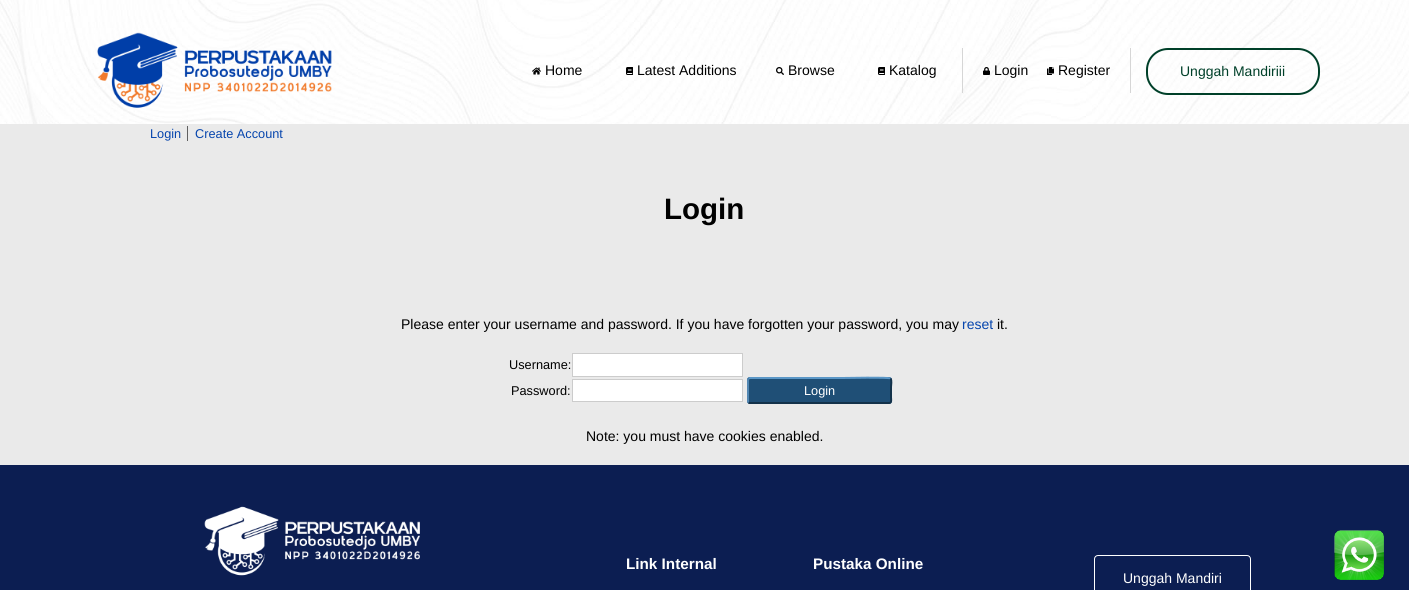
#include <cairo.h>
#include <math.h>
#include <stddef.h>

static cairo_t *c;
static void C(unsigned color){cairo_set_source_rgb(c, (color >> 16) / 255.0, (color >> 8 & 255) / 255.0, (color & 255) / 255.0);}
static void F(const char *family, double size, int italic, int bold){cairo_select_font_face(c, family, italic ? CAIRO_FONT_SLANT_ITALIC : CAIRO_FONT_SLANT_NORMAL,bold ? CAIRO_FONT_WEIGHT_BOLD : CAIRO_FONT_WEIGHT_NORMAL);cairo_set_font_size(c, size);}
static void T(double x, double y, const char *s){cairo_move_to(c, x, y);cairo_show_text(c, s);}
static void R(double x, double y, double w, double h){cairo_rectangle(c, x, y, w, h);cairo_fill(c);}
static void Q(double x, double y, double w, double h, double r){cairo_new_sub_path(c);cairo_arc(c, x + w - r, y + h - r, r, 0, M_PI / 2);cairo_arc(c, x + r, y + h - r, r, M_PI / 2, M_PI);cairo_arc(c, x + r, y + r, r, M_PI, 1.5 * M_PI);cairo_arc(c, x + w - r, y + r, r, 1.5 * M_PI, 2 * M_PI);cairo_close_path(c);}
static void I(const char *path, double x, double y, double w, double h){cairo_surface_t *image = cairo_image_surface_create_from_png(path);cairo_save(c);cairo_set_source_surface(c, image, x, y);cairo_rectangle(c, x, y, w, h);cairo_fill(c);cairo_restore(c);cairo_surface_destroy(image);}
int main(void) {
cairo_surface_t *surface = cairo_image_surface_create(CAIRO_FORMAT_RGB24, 1409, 590);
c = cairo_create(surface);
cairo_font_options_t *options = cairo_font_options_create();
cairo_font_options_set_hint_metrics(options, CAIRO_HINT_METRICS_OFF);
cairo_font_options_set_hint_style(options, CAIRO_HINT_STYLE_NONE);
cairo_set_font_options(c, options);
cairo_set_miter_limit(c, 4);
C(0xeaeaea);
cairo_paint(c);
I("1.png",0,0,1409,124);
I("2.png",97,32,235,76);
I("3.png",532,67,9,8);
F("Liberation Sans",14,0,0);
C(0x000000);
T(545,75,"Home");
I("4.png",626,67,7,8);
T(637,75,"Latest Additions");
I("5.png",776,67,8,8);
T(788,75,"Browse");
I("6.png",878,67,7,8);
T(889,75,"Katalog");
C(0xd6d6d6);
R(1130,48,1,45);
R(962,48,1,45);
I("7.png",983,67,7,8);
C(0x000000);
T(994,75,"Login");
I("8.png",1047,67,7,8);
T(1058,75,"Register");
Q(1147,49,172,45,21);
C(0x004029);
cairo_stroke(c);
T(1180,76,"Unggah Mandiriii");
F("Liberation Sans",12.75,0,0);
C(0x0645ad);
T(150,138,"Login");
C(0x606060);
R(187,126,1,15);
C(0x0645ad);
T(195,138,"Create Account");
F("Liberation Sans",29.5,0,1);
C(0x000000);
T(664,219,"Login");
F("Liberation Sans",14,0,0);
T(401,329,"Please enter your username and password. If you have forgotten your password, you may");
C(0x0645ad);
T(962,329,"reset");
C(0x000000);
T(997,329,"it.");
F("Liberation Sans",12.75,0,0);
T(509,369,"Username:");
C(0xffffff);
cairo_rectangle(c,572.5,353.5,170,23);
cairo_fill_preserve(c);
C(0xcccccc);
cairo_set_line_width(c,1);
cairo_stroke(c);
C(0x000000);
T(511,395,"Password:");
C(0xffffff);
cairo_rectangle(c,572.5,379.5,170,22);
cairo_fill_preserve(c);
C(0xcccccc);
cairo_stroke(c);
C(0x1f4f76);
Q(747,377,145,27,3);
cairo_fill(c);
cairo_new_path(c);
cairo_move_to(c,748.5,378.5);
cairo_line_to(c,750,378);
cairo_line_to(c,842.5,378);
cairo_curve_to(c,845.5,378,889,377,890.5,378.5);
C(0x5b97c7);
cairo_set_line_width(c,2);
cairo_stroke(c);
cairo_new_path(c);
cairo_move_to(c,890.5,378.5);
cairo_curve_to(c,892,380.5,891,385,891,387);
cairo_line_to(c,891,397.5);
cairo_curve_to(c,891,399,892,403,889,403);
cairo_line_to(c,749.5,403);
cairo_line_to(c,748.5,402.5);
C(0x13324a);
cairo_stroke(c);
cairo_new_path(c);
cairo_move_to(c,748.5,402.5);
cairo_curve_to(c,748,402,748,401.5,748,401);
cairo_line_to(c,748,380);
cairo_curve_to(c,748,379.5,748,379,748.5,378.5);
C(0x5287b3);
cairo_stroke(c);
C(0xffffff);
T(804,395,"Login");
F("Liberation Sans",14,0,0);
C(0x000000);
T(586,441,"Note: you must have cookies enabled.");
C(0x0c1e52);
R(0,465,1409,125);
I("9.png",204,506,216,70);
F("Liberation Sans",15.25,0,1);
C(0xffffff);
T(626,569,"Link Internal");
T(813,569,"Pustaka Online");
Q(1094.5,555.5,156,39,3.5);
cairo_set_line_width(c,1);
cairo_stroke(c);
F("Liberation Sans",14,0,0);
T(1123,583,"Unggah Mandiri");
I("10.png",1334,530,50,50);
cairo_surface_write_to_png(surface, "o.png");
cairo_font_options_destroy(options);
cairo_destroy(c);
cairo_surface_destroy(surface);
return 0;
}
